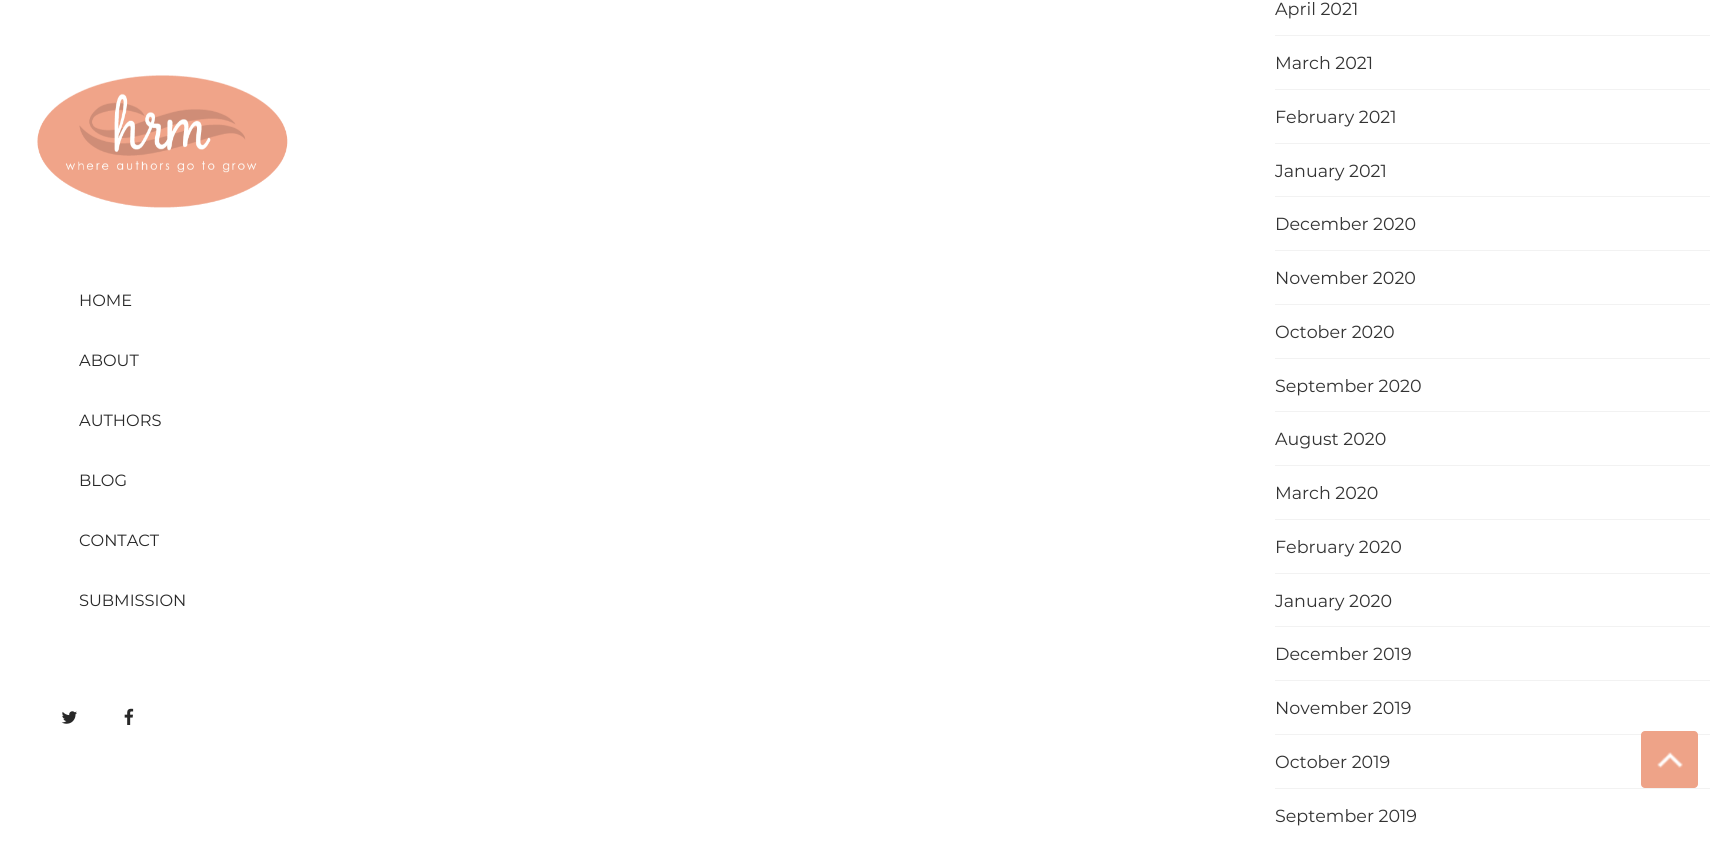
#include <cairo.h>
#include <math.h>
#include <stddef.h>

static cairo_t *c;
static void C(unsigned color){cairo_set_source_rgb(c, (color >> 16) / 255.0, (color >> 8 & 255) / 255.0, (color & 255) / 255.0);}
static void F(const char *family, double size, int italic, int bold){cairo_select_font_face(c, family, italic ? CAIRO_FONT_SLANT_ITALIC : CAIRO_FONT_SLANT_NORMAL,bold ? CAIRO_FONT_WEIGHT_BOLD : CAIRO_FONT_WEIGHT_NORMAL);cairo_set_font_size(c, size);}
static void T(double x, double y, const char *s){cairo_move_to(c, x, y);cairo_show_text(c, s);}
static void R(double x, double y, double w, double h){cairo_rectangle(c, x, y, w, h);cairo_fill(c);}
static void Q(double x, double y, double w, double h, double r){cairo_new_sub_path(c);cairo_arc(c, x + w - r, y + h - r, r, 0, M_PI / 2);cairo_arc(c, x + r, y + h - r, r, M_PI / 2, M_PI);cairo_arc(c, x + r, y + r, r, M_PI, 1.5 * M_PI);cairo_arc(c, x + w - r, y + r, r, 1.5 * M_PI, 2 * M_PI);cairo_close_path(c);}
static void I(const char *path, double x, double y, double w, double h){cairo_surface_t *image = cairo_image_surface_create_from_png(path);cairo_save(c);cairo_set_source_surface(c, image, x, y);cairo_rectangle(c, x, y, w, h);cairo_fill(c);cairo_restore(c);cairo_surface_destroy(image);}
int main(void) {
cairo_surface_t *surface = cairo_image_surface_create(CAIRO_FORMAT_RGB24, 1735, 850);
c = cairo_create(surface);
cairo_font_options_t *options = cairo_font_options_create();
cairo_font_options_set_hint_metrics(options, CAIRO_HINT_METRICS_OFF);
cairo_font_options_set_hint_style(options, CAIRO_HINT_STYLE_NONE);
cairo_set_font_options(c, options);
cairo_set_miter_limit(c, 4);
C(0xffffff);
cairo_paint(c);
I("1.png",37,75,251,133);
F("Montserrat",16.25,0,0);
C(0x282828);
T(79,306,"HOME");
T(79,366,"ABOUT");
T(79,426,"AUTHORS");
T(79,486,"BLOG");
T(79,546,"CONTACT");
T(79,606,"SUBMISSION");
I("2.png",61,711,16,13);
I("3.png",124,708,10,17);
C(0xf2f2f2);
R(1275,35,435,1);
F("Montserrat",17.5,0,0);
C(0x333333);
T(1275,15,"April 2021");
C(0xf2f2f2);
R(1275,89,435,1);
C(0x333333);
T(1275,69,"March 2021");
C(0xf2f2f2);
R(1275,143,435,1);
C(0x333333);
T(1275,123,"February 2021");
C(0xf2f2f2);
R(1275,196,435,1);
C(0x333333);
T(1275,177,"January 2021");
C(0xf2f2f2);
R(1275,250,435,1);
C(0x333333);
T(1275,230,"December 2020");
C(0xf2f2f2);
R(1275,304,435,1);
C(0x333333);
T(1275,284,"November 2020");
C(0xf2f2f2);
R(1275,358,435,1);
C(0x333333);
T(1275,338,"October 2020");
C(0xf2f2f2);
R(1275,411,435,1);
C(0x333333);
T(1275,392,"September 2020");
C(0xf2f2f2);
R(1275,465,435,1);
C(0x333333);
T(1275,445,"August 2020");
C(0xf2f2f2);
R(1275,519,435,1);
C(0x333333);
T(1275,499,"March 2020");
C(0xf2f2f2);
R(1275,573,435,1);
C(0x333333);
T(1275,553,"February 2020");
C(0xf2f2f2);
R(1275,626,435,1);
C(0x333333);
T(1275,607,"January 2020");
C(0xf2f2f2);
R(1275,680,435,1);
C(0x333333);
T(1275,660,"December 2019");
C(0xf2f2f2);
R(1275,734,435,1);
C(0x333333);
T(1275,714,"November 2019");
C(0xf2f2f2);
R(1275,788,435,1);
C(0x333333);
T(1275,768,"October 2019");
T(1275,822,"September 2019");
C(0xeea388);
Q(1641,731,57,57,4);
cairo_fill(c);
I("4.png",1657,752,26,16);
cairo_surface_write_to_png(surface, "o.png");
cairo_font_options_destroy(options);
cairo_destroy(c);
cairo_surface_destroy(surface);
return 0;
}
